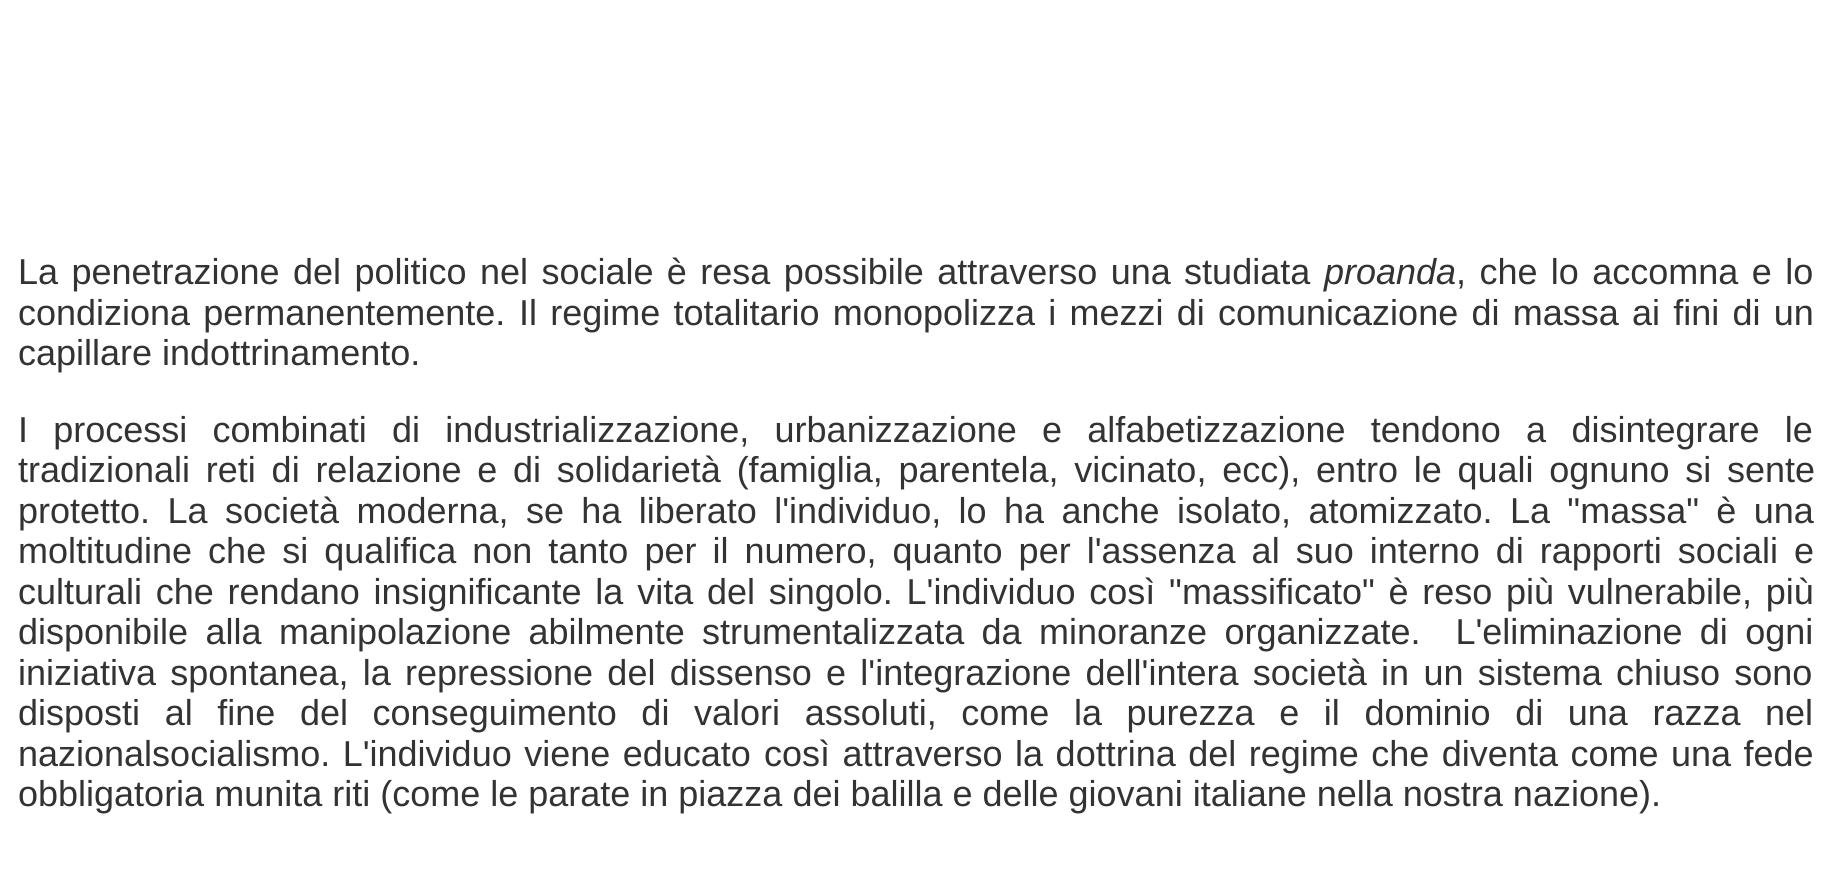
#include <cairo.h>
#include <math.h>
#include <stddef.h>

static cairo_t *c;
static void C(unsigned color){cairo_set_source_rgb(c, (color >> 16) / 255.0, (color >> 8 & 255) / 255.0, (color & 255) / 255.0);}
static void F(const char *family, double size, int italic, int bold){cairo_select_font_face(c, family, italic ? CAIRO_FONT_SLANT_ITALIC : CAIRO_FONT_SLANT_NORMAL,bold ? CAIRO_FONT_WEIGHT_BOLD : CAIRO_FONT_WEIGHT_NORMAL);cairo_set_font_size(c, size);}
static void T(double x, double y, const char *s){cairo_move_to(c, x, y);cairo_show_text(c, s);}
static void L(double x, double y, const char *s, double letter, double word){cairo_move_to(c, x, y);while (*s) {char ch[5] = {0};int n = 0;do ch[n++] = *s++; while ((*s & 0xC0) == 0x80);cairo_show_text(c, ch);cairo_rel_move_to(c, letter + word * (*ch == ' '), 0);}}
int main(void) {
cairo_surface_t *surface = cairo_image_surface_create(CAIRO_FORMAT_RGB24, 1830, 871);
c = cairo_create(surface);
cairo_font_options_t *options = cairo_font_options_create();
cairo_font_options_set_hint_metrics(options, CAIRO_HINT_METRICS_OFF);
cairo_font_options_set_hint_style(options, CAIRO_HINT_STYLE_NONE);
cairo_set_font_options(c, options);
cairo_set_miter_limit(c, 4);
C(0xffffff);
cairo_paint(c);
F("Liberation Sans",36,0,0);
C(0x333333);
L(18,284,"La penetrazione del politico nel sociale è resa possibile attraverso una studiata",0,3.4);
F("Liberation Sans",36,1,0);
T(1324,284,"proanda");
F("Liberation Sans",36,0,0);
L(1456,284,", che lo accomna e lo",0,3.4);
L(18,325,"condiziona permanentemente.",0,3);
L(519,325,"Il regime totalitario monopolizza i mezzi di comunicazione di massa ai fini di un",0,3.25);
T(18,365,"capillare indottrinamento.");
L(18,442,"I processi combinati di industrializzazione, urbanizzazione e alfabetizzazione tendono a disintegrare le",0,15.25);
L(18,482,"tradizionali reti di relazione e di solidarietà (famiglia, parentela, vicinato, ecc), entro le quali ognuno si sente",0,5.75);
L(18,523,"protetto. La società moderna, se ha liberato l'individuo, lo ha anche isolato, atomizzato. La \"massa\" è una",0,7.4);
L(18,563,"moltitudine che si qualifica non tanto per il numero, quanto per l'assenza al suo interno di rapporti sociali e",0,6);
L(18,604,"culturali che rendano insignificante la vita del singolo. L'individuo così \"massificato\" è reso più vulnerabile, più",0,3.75);
L(18,644,"disponibile alla manipolazione abilmente strumentalizzata da minoranze organizzate.  L'eliminazione di ogni",0,7.4);
L(18,685,"iniziativa spontanea, la repressione del dissenso e l'integrazione dell'intera società in un sistema chiuso sono",0,4.25);
L(18,725,"disposti al fine del conseguimento di valori assoluti, come la purezza e il dominio di una razza nel",0,14.6);
L(18,766,"nazionalsocialismo. L'individuo viene educato",0,2.5);
L(764,766,"così attraverso la dottrina del regime che diventa come una fede",0,2.5);
T(18,806,"obbligatoria munita riti (come le parate in piazza dei balilla e delle giovani italiane nella nostra nazione).");
cairo_surface_write_to_png(surface, "o.png");
cairo_font_options_destroy(options);
cairo_destroy(c);
cairo_surface_destroy(surface);
return 0;
}
